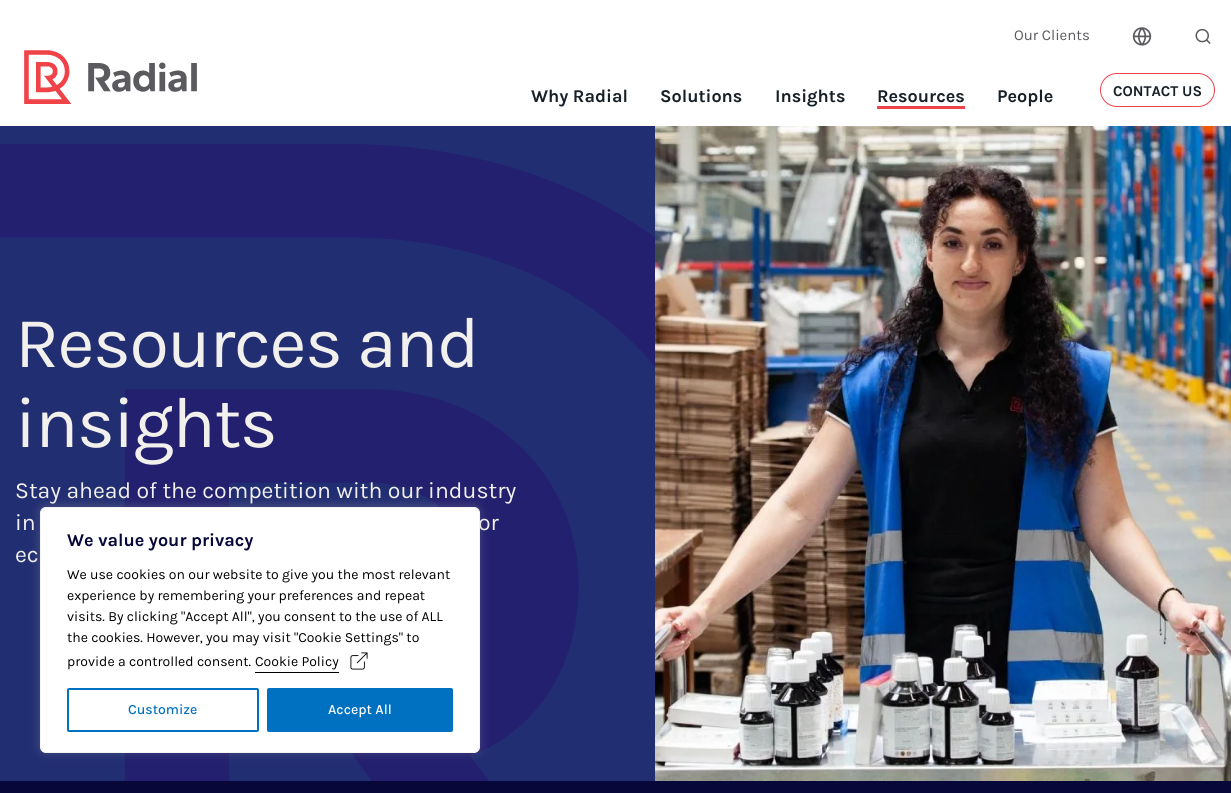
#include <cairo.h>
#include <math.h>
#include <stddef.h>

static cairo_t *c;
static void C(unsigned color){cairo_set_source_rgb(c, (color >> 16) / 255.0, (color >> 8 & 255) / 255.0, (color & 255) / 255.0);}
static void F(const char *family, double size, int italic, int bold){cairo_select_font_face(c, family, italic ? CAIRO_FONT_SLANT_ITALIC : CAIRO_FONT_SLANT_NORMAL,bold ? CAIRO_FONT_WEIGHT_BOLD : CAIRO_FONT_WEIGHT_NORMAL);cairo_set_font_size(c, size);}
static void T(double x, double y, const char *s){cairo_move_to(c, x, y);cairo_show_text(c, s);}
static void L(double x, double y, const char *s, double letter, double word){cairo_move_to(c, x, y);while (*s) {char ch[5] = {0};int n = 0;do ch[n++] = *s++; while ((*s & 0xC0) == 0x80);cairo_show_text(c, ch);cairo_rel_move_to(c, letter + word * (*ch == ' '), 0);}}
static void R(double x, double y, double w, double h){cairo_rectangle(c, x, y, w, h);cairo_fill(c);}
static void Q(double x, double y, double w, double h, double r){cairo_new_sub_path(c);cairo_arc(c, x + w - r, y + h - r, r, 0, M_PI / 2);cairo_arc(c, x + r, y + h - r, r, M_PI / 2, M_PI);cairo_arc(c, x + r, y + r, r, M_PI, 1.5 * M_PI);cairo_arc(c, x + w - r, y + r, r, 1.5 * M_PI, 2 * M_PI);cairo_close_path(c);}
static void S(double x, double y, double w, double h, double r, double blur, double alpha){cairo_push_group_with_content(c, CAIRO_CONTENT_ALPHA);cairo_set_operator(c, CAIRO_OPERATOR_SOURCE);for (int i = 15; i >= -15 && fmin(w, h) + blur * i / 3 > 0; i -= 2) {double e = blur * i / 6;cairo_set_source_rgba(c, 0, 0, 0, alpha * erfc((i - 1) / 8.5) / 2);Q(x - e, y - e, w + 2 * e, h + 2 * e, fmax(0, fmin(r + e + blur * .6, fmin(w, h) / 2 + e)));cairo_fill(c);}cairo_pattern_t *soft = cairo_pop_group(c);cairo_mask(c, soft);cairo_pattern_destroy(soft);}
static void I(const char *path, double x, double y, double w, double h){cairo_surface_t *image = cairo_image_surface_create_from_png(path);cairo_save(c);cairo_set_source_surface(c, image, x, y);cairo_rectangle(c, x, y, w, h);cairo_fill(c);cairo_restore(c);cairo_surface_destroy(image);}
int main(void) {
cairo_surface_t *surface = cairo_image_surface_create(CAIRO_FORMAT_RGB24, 1231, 793);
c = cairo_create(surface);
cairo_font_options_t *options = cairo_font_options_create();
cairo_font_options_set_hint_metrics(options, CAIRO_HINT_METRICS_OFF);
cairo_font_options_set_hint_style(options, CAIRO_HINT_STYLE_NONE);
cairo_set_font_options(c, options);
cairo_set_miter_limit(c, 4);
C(0xffffff);
cairo_paint(c);
F("Karla",15,0,0);
C(0x5a5a5f);
T(1014,40,"Our Clients");
I("1.png",1132,27,20,19);
I("2.png",1195,28,16,16);
I("3.png",24,50,173,54);
F("Karla",18,0,1);
C(0x171f27);
T(531,102,"Why Radial");
T(660,102,"Solutions");
T(775,102,"Insights");
T(877,102,"Resources");
C(0xef434b);
R(877,106,88,3);
C(0x171f27);
T(997,102,"People");
Q(1100.5,73.5,114,33,16.5);
C(0xef434b);
cairo_set_line_width(c,1);
cairo_stroke(c);
F("Karla",15,0,1);
C(0x171f27);
T(1113,96,"CONTACT US");
C(0x222e72);
R(0,126,655,655);
I("4.png",0,144,655,637);
F("Karla",72,0,0);
C(0xf2f0ec);
L(15,367,"Resources and",-1.5,0);
L(15,447,"insights",-1.5,0);
F("Karla",23,0,0);
T(15,498,"Stay ahead of the competition with our industry");
T(15,530,"in");
T(478,530,"or");
T(15,562,"ec");
I("5.png",655,126,576,655);
C(0x07073a);
R(0,781,1231,12);
C(0xacabab);
S(40,506,440,246,6,5,.3);
C(0xffffff);
Q(40.5,507.5,439,245,5.5);
cairo_fill_preserve(c);
C(0xf4f4f4);
cairo_stroke(c);
F("Karla",18,0,1);
C(0x07073a);
T(67,546,"We value your privacy");
F("Karla",14,0,0);
C(0x000000);
T(67,579,"We use cookies on our website to give you the most relevant");
T(67,600,"experience by remembering your preferences and repeat");
T(67,621,"visits. By clicking \"Accept All\", you consent to the use of ALL");
T(67,642,"the cookies. However, you may visit \"Cookie Settings\" to");
T(67,666,"provide a controlled consent.");
T(255,666,"Cookie Policy");
R(255,672,84,1);
I("6.png",350,652,18,18);
Q(68,689,190,42,1);
C(0x0070c0);
cairo_set_line_width(c,2);
cairo_stroke(c);
F("Karla Medium",14,0,0);
T(128,714,"Customize");
Q(268,689,184,42,1);
cairo_fill_preserve(c);
cairo_stroke(c);
C(0xffffff);
T(328,714,"Accept All");
cairo_surface_write_to_png(surface, "o.png");
cairo_font_options_destroy(options);
cairo_destroy(c);
cairo_surface_destroy(surface);
return 0;
}
